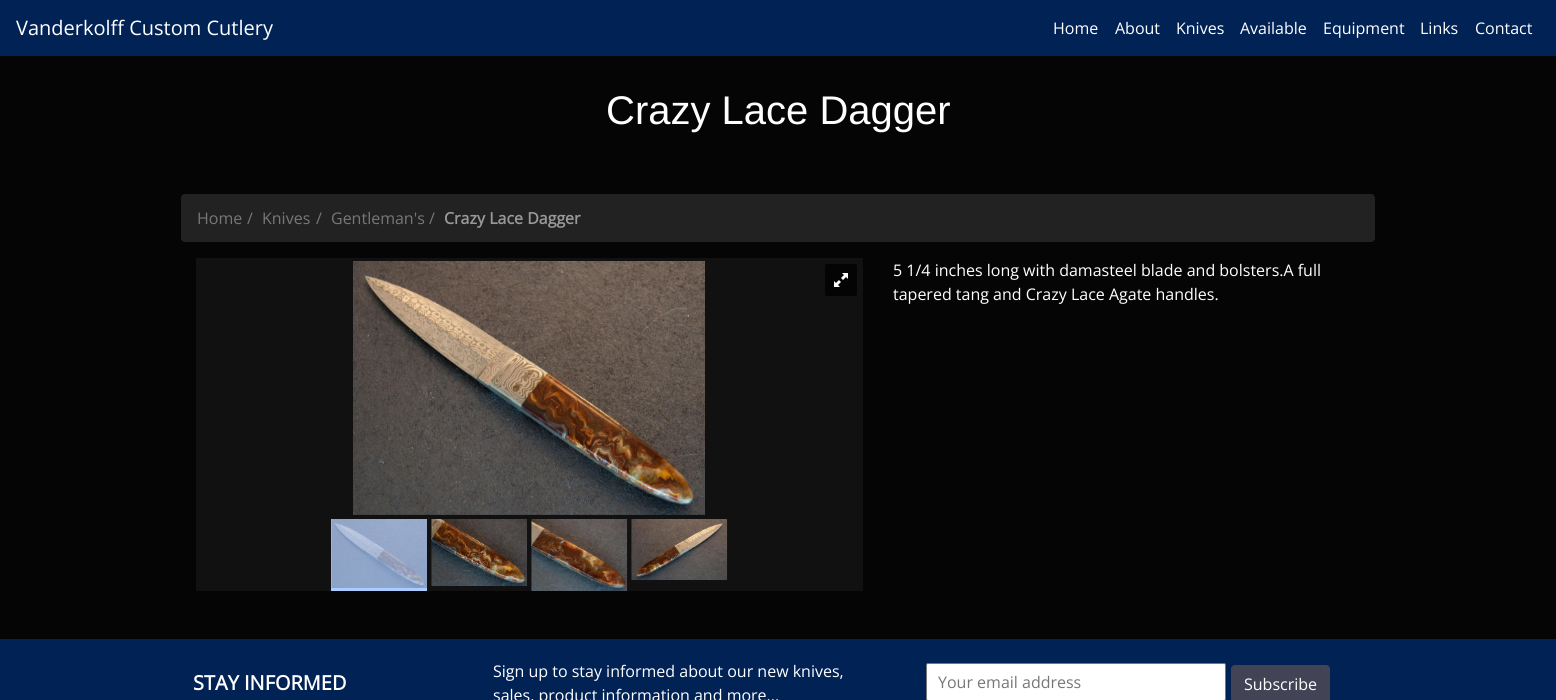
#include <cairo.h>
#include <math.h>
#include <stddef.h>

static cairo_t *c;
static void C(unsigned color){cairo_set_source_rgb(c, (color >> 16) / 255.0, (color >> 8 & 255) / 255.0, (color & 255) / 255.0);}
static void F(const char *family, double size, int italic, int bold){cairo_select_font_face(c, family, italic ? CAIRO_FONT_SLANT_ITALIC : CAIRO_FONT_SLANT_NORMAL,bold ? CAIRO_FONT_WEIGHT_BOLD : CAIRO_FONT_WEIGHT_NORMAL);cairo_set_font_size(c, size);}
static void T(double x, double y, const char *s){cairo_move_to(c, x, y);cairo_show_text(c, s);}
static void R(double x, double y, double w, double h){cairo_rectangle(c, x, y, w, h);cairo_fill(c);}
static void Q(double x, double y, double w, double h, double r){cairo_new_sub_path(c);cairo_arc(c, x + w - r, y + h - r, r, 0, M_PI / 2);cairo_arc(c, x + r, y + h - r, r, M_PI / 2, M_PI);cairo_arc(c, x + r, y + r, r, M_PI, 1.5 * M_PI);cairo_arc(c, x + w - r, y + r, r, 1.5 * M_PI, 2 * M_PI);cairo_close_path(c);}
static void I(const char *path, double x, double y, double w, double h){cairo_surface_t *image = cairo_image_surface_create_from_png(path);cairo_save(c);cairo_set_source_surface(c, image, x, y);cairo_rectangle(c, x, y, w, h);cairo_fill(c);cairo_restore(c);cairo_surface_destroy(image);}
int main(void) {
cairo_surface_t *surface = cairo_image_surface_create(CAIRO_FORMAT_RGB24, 1556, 700);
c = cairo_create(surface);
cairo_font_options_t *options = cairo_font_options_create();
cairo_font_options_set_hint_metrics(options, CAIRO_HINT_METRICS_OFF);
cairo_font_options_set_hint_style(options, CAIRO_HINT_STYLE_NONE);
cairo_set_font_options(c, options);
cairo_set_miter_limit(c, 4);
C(0x050505);
cairo_paint(c);
C(0x002255);
R(0,0,1556,56);
F("Open Sans",20,0,0);
C(0xffffff);
T(16,35,"Vanderkolff Custom Cutlery");
F("Open Sans",16,0,0);
T(1053,34,"Home");
T(1115,34,"About");
T(1176,34,"Knives");
T(1240,34,"Available");
T(1323,34,"Equipment");
T(1420,34,"Links");
T(1475,34,"Contact");
F("Liberation Sans",40,0,0);
T(606,124,"Crazy Lace Dagger");
C(0x222222);
Q(181,194,1194,48,4);
cairo_fill(c);
F("Open Sans",16,0,0);
C(0x777777);
T(197,224,"Home");
T(247,224,"/");
T(262,224,"Knives");
T(316,224,"/");
T(331,224,"Gentleman's");
T(429,224,"/");
F("Open Sans",16,0,1);
C(0x999999);
T(444,224,"Crazy Lace Dagger");
C(0x111111);
R(196,258,667,333);
I("1.png",353,261,352,254);
C(0x040404);
Q(825,264,32,32,2);
cairo_fill(c);
I("2.png",834,273,14,14);
C(0xaaccff);
R(331,519,96,72);
I("3.png",331,519,96,69);
I("4.png",431,519,96,67);
I("5.png",531,519,97,72);
I("6.png",631,519,97,61);
F("Open Sans",16,0,0);
C(0xffffff);
T(893,276,"5 1/4 inches long with damasteel blade and bolsters.A full");
T(893,300,"tapered tang and Crazy Lace Agate handles.");
C(0x002255);
R(0,639,1556,61);
F("Open Sans",20,0,1);
C(0xffffff);
T(193,690,"STAY INFORMED");
F("Open Sans",16,0,0);
T(493,677,"Sign up to stay informed about our new knives,");
T(493,701,"sales, product information and more...");
Q(926.5,663.5,299,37,1.5);
cairo_fill_preserve(c);
C(0x767676);
cairo_set_line_width(c,1);
cairo_stroke(c);
C(0x777777);
T(938,688,"Your email address");
C(0x424355);
Q(1231,665,99,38,4);
cairo_fill(c);
C(0xffffff);
T(1244,690,"Subscribe");
cairo_surface_write_to_png(surface, "o.png");
cairo_font_options_destroy(options);
cairo_destroy(c);
cairo_surface_destroy(surface);
return 0;
}
